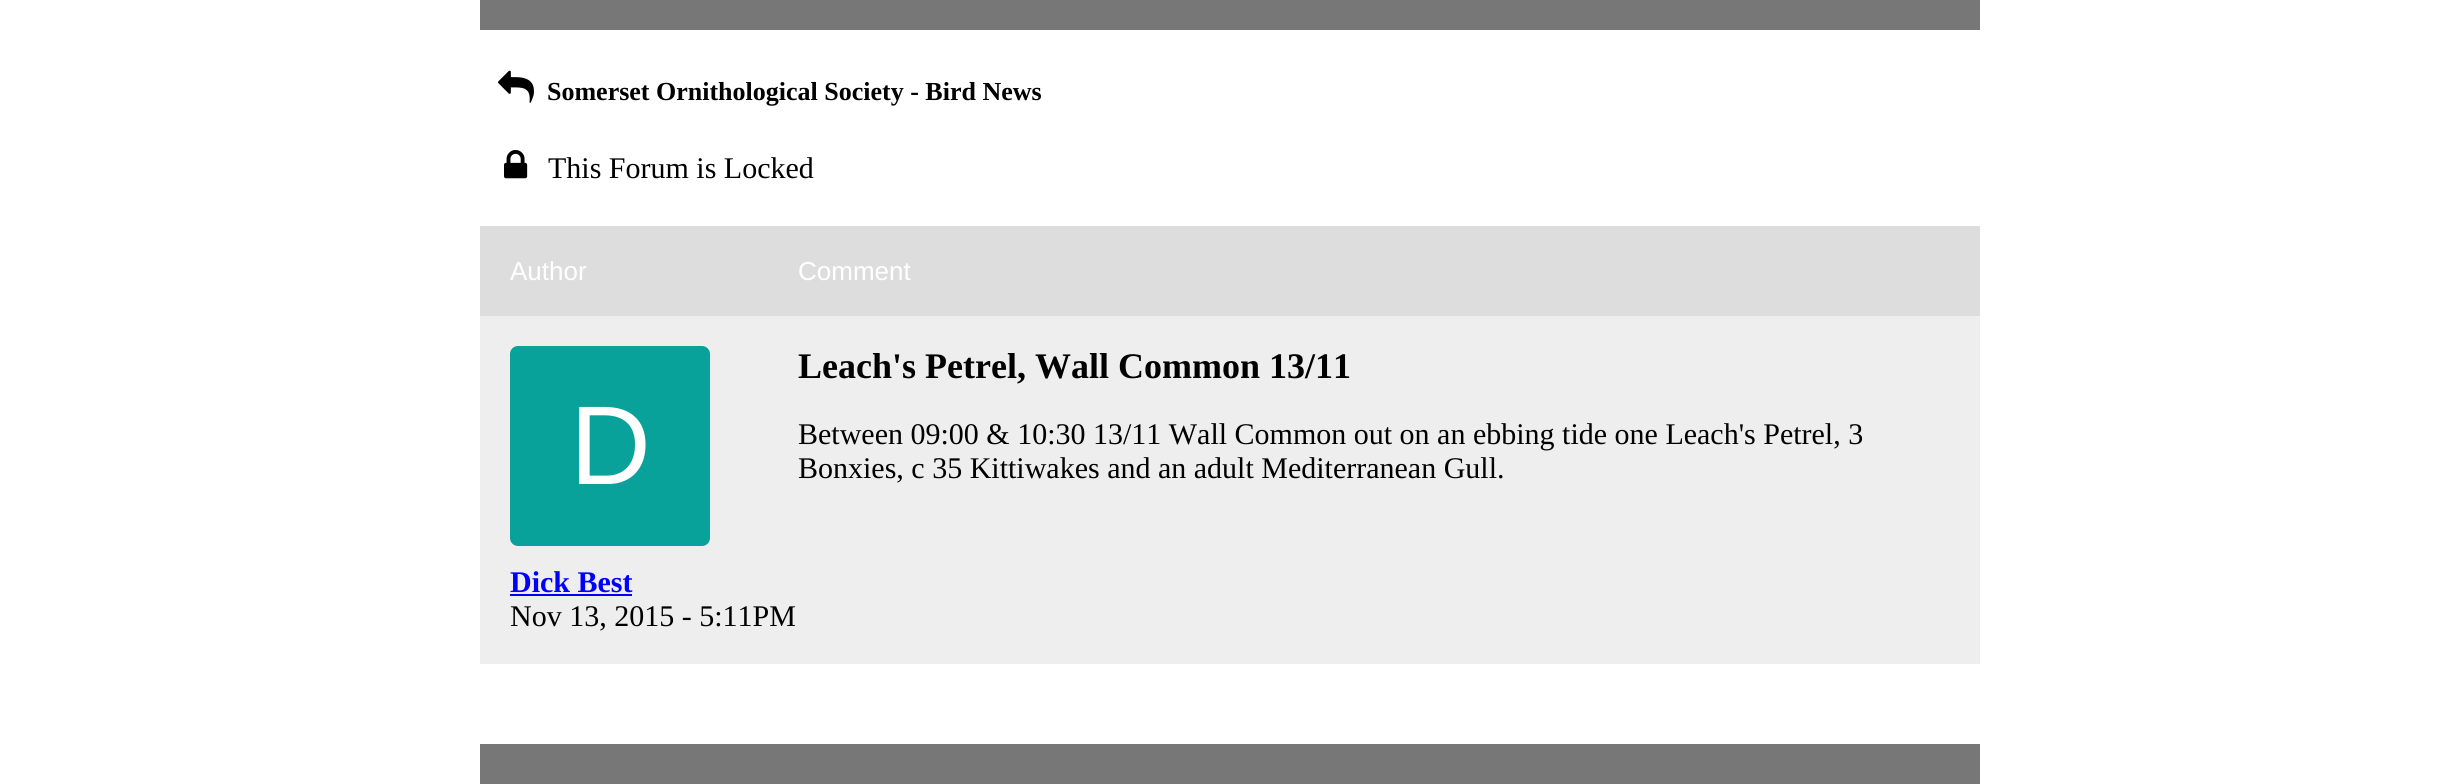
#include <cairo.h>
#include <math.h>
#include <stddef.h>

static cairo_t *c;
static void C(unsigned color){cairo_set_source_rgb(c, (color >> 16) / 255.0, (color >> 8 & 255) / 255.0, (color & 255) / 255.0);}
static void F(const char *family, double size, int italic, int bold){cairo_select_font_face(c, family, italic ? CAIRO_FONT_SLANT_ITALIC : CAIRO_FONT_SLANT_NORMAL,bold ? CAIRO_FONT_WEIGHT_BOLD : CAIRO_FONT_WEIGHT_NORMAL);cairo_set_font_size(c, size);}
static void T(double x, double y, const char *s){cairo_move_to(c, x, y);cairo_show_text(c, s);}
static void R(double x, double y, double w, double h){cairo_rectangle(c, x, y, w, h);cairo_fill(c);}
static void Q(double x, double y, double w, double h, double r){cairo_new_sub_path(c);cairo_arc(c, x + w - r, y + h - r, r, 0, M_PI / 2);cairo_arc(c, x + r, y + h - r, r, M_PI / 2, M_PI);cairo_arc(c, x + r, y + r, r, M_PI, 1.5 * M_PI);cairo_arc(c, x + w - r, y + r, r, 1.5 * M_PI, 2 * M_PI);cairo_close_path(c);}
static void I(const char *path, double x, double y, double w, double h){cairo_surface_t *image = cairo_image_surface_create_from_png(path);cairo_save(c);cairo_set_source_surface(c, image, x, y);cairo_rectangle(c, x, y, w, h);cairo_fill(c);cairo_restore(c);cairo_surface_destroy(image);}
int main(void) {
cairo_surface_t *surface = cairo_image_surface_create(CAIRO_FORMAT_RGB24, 2460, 784);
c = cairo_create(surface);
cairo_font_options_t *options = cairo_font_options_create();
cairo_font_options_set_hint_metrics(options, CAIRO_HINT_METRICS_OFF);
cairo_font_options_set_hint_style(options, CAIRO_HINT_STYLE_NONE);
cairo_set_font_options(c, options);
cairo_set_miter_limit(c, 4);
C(0xffffff);
cairo_paint(c);
C(0x777777);
R(480,0,1500,30);
I("1.png",498,70,36,33);
F("Liberation Serif",26,0,1);
C(0x000000);
T(547,100,"Somerset Ornithological Society - Bird News");
I("2.png",504,150,24,29);
F("Liberation Serif",30,0,0);
T(548,178,"This Forum is Locked");
C(0xdddddd);
R(480,226,1500,90);
F("Liberation Sans",26,0,0);
C(0xffffff);
T(510,280,"Author");
T(798,280,"Comment");
C(0xeeeeee);
R(480,316,1500,348);
C(0x08a29a);
Q(510,346,200,200,8);
cairo_fill(c);
F("Liberation Sans",112,0,0);
C(0xffffff);
T(570,484,"D");
F("Liberation Serif",30,0,1);
C(0x0000ff);
T(510,592,"Dick Best");
R(510,594,122,2);
F("Liberation Serif",30,0,0);
C(0x000000);
T(510,626,"Nov 13, 2015 - 5:11PM");
F("Liberation Serif",36,0,1);
T(798,378,"Leach's Petrel, Wall Common 13/11");
F("Liberation Serif",30,0,0);
T(798,444,"Between 09:00 & 10:30 13/11 Wall Common out on an ebbing tide one Leach's Petrel, 3");
T(798,478,"Bonxies, c 35 Kittiwakes and an adult Mediterranean Gull.");
C(0x777777);
R(480,744,1500,40);
cairo_surface_write_to_png(surface, "o.png");
cairo_font_options_destroy(options);
cairo_destroy(c);
cairo_surface_destroy(surface);
return 0;
}
